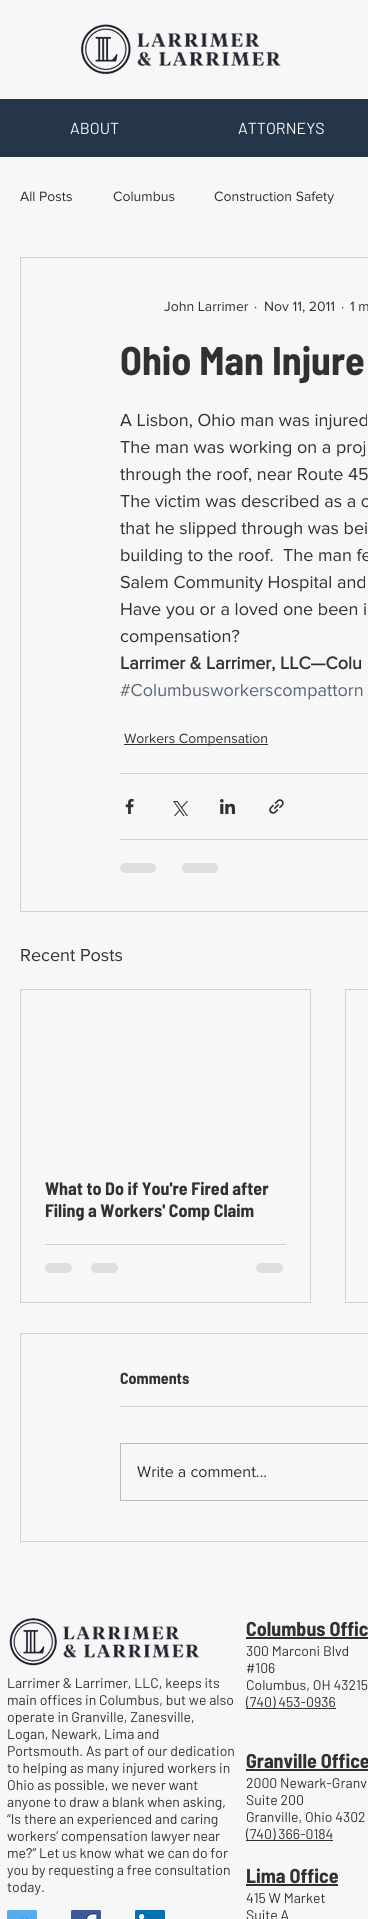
#include <cairo.h>
#include <math.h>
#include <stddef.h>

static cairo_t *c;
static void C(unsigned color){cairo_set_source_rgb(c, (color >> 16) / 255.0, (color >> 8 & 255) / 255.0, (color & 255) / 255.0);}
static void F(const char *family, double size, int italic, int bold){cairo_select_font_face(c, family, italic ? CAIRO_FONT_SLANT_ITALIC : CAIRO_FONT_SLANT_NORMAL,bold ? CAIRO_FONT_WEIGHT_BOLD : CAIRO_FONT_WEIGHT_NORMAL);cairo_set_font_size(c, size);}
static void T(double x, double y, const char *s){cairo_move_to(c, x, y);cairo_show_text(c, s);}
static void R(double x, double y, double w, double h){cairo_rectangle(c, x, y, w, h);cairo_fill(c);}
static void Q(double x, double y, double w, double h, double r){cairo_new_sub_path(c);cairo_arc(c, x + w - r, y + h - r, r, 0, M_PI / 2);cairo_arc(c, x + r, y + h - r, r, M_PI / 2, M_PI);cairo_arc(c, x + r, y + r, r, M_PI, 1.5 * M_PI);cairo_arc(c, x + w - r, y + r, r, 1.5 * M_PI, 2 * M_PI);cairo_close_path(c);}
static void I(const char *path, double x, double y, double w, double h){cairo_surface_t *image = cairo_image_surface_create_from_png(path);cairo_save(c);cairo_set_source_surface(c, image, x, y);cairo_rectangle(c, x, y, w, h);cairo_fill(c);cairo_restore(c);cairo_surface_destroy(image);}
int main(void) {
cairo_surface_t *surface = cairo_image_surface_create(CAIRO_FORMAT_RGB24, 368, 1919);
c = cairo_create(surface);
cairo_font_options_t *options = cairo_font_options_create();
cairo_font_options_set_hint_metrics(options, CAIRO_HINT_METRICS_OFF);
cairo_font_options_set_hint_style(options, CAIRO_HINT_STYLE_NONE);
cairo_set_font_options(c, options);
cairo_set_miter_limit(c, 4);
C(0xf7f7f7);
cairo_paint(c);
I("1.png",80,24,201,51);
C(0x263649);
R(0,99,368,58);
F("Barlow",16,0,0);
C(0xf7f7f7);
T(70,134,"ABOUT");
T(238,134,"ATTORNEYS");
F("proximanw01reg",14,0,0);
C(0x313131);
T(20,201,"All Posts");
T(113,201,"Columbus");
T(214,201,"Construction Safety");
cairo_rectangle(c,20.5,257.5,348,654);
C(0xd2d2d2);
cairo_set_line_width(c,1);
cairo_stroke(c);
C(0x313131);
T(164,311,"John Larrimer");
T(254,311,"·");
T(264,311,"Nov 11, 2011");
T(341,311,"·");
T(350,311,"1 m");
F("Barlow Semi Condensed",40,0,1);
T(120,375,"Ohio Man Injure");
F("proximanw01reg",18,0,0);
T(120,426,"A Lisbon, Ohio man was injured");
T(120,453,"The man was working on a proj");
T(120,480,"through the roof, near Route 45");
T(120,507,"The victim was described as a c");
T(120,534,"that he slipped through was bei");
T(120,561,"building to the roof.  The man fe");
T(120,588,"Salem Community Hospital and");
T(120,615,"Have you or a loved one been i");
T(120,642,"compensation?");
F("proximanw01reg",18,0,1);
T(120,669,"Larrimer & Larrimer, LLC—Colu");
F("proximanw01reg",18,0,0);
C(0x5a6777);
T(120,696,"#Columbusworkerscompattorn");
C(0x313131);
R(124,744,144,1);
F("proximanw01reg",14,0,0);
T(124,743,"Workers Compensation");
C(0xcfcfcf);
R(120,773,248,1);
I("2.png",125,799,9,15);
I("3.png",173,801,15,15);
I("4.png",220,799,15,15);
I("5.png",269,799,15,15);
R(120,839,248,1);
C(0xdfdfdf);
Q(120,863,36,10,5);
cairo_fill(c);
Q(182,863,36,10,5);
cairo_fill(c);
F("proximanw01reg",18,0,0);
C(0x313131);
T(20,961,"Recent Posts");
cairo_rectangle(c,20.5,989.5,290,313);
C(0xd2d2d2);
cairo_stroke(c);
F("Barlow Semi Condensed",18,0,1);
C(0x313131);
T(45,1195,"What to Do if You're Fired after");
T(45,1217,"Filing a Workers' Comp Claim");
C(0xcfcfcf);
R(45,1244,241,1);
C(0xdfdfdf);
Q(45,1263,27,10,5);
cairo_fill(c);
Q(91,1263,27,10,5);
cairo_fill(c);
Q(256,1263,27,10,5);
cairo_fill(c);
cairo_rectangle(c,345.5,989.5,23,313);
C(0xd2d2d2);
cairo_stroke(c);
cairo_rectangle(c,20.5,1333.5,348,208);
cairo_stroke(c);
F("Barlow Semi Condensed",16,0,1);
C(0x313131);
T(120,1384,"Comments");
C(0xcfcfcf);
R(120,1406,248,1);
cairo_rectangle(c,120.5,1443.5,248,57);
C(0xbcbcbc);
cairo_stroke(c);
F("proximanw01reg",16,0,0);
C(0x313131);
T(137,1477,"Write a comment...");
I("6.png",9,1618,191,48);
F("Barlow",14,0,0);
T(7,1688,"Larrimer & Larrimer, LLC, keeps its");
T(7,1705,"main offices in Columbus, but we also");
T(7,1722,"operate in Granville, Zanesville,");
T(7,1739,"Logan, Newark, Lima and");
T(7,1756,"Portsmouth. As part of our dedication");
T(7,1773,"to helping as many injured workers in");
T(7,1790,"Ohio as possible, we never want");
T(7,1807,"anyone to draw a blank when asking,");
T(7,1824,"“Is there an experienced and caring");
T(7,1841,"workers’ compensation lawyer near");
T(7,1858,"me?” Let us know what we can do for");
T(7,1875,"you by requesting a free consultation");
T(7,1892,"today.");
I("7.png",7,1910,30,9);
I("8.png",71,1910,30,9);
I("9.png",135,1910,30,9);
F("Barlow Semi Condensed",20,0,1);
T(246,1636,"Columbus Offic");
R(246,1637,122,2);
F("Barlow",14,0,0);
T(246,1656,"300 Marconi Blvd");
T(246,1673,"#106");
T(246,1690,"Columbus, OH 43215");
R(246,1708,90,1);
T(246,1707,"(740) 453-0936");
F("Barlow Semi Condensed",20,0,1);
T(246,1768,"Granville Office");
R(246,1769,122,2);
F("Barlow",14,0,0);
T(246,1788,"2000 Newark-Granv");
T(246,1805,"Suite 200");
T(246,1822,"Granville, Ohio 4302");
R(246,1840,87,1);
T(246,1839,"(740) 366-0184");
F("Barlow Semi Condensed",20,0,1);
T(246,1883,"Lima Office");
R(246,1884,92,2);
F("Barlow",14,0,0);
T(246,1903,"415 W Market");
T(246,1920,"Suite A");
cairo_surface_write_to_png(surface, "o.png");
cairo_font_options_destroy(options);
cairo_destroy(c);
cairo_surface_destroy(surface);
return 0;
}
